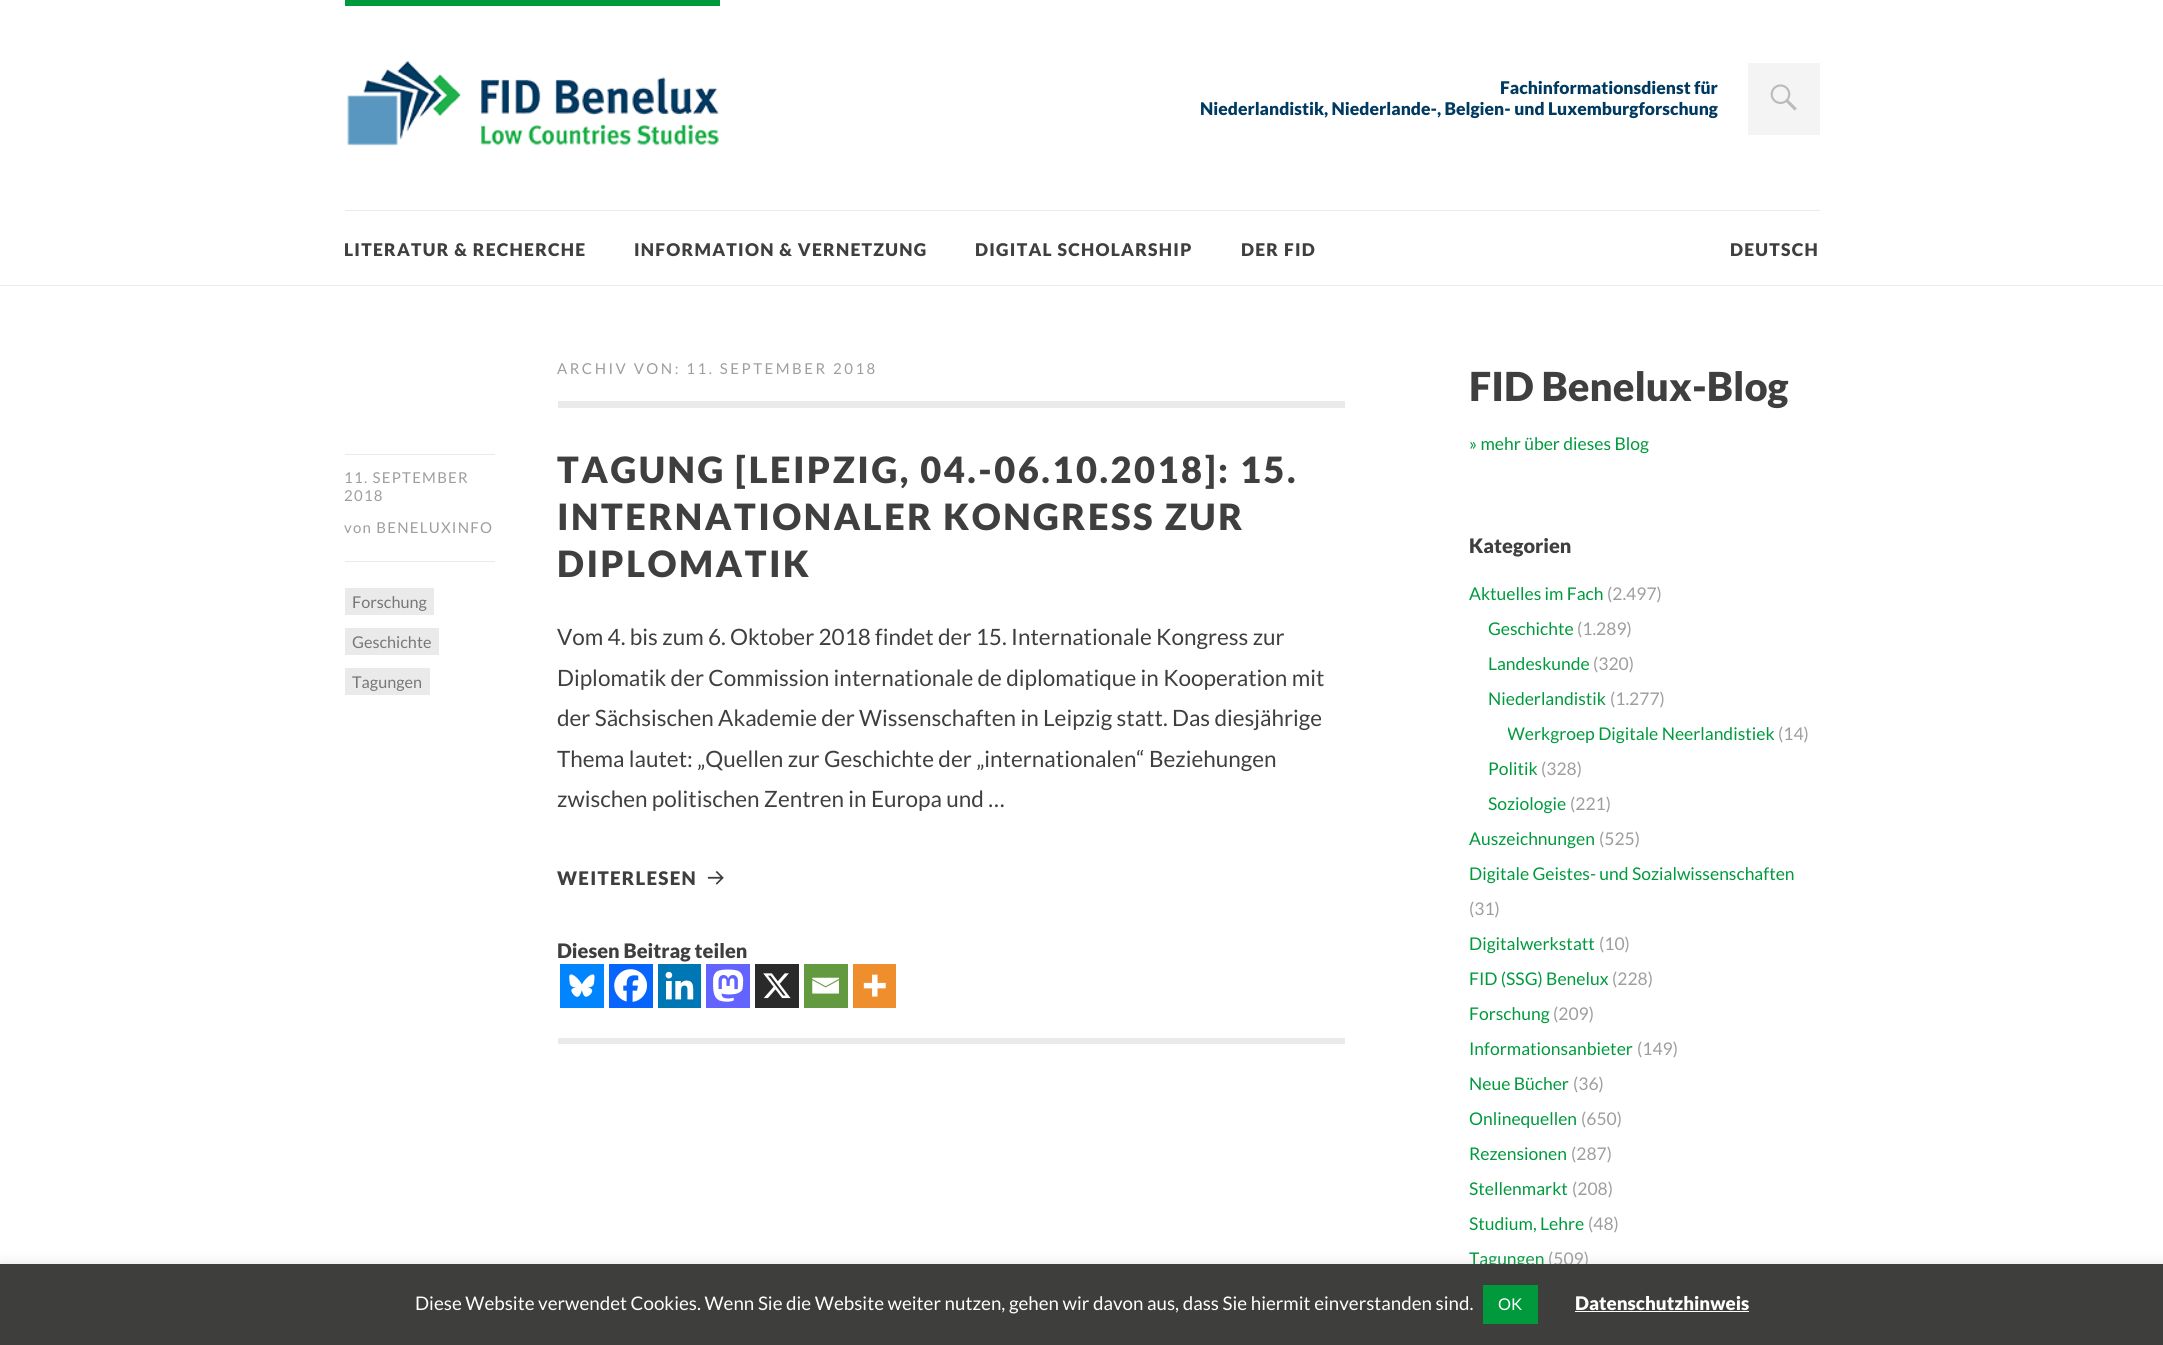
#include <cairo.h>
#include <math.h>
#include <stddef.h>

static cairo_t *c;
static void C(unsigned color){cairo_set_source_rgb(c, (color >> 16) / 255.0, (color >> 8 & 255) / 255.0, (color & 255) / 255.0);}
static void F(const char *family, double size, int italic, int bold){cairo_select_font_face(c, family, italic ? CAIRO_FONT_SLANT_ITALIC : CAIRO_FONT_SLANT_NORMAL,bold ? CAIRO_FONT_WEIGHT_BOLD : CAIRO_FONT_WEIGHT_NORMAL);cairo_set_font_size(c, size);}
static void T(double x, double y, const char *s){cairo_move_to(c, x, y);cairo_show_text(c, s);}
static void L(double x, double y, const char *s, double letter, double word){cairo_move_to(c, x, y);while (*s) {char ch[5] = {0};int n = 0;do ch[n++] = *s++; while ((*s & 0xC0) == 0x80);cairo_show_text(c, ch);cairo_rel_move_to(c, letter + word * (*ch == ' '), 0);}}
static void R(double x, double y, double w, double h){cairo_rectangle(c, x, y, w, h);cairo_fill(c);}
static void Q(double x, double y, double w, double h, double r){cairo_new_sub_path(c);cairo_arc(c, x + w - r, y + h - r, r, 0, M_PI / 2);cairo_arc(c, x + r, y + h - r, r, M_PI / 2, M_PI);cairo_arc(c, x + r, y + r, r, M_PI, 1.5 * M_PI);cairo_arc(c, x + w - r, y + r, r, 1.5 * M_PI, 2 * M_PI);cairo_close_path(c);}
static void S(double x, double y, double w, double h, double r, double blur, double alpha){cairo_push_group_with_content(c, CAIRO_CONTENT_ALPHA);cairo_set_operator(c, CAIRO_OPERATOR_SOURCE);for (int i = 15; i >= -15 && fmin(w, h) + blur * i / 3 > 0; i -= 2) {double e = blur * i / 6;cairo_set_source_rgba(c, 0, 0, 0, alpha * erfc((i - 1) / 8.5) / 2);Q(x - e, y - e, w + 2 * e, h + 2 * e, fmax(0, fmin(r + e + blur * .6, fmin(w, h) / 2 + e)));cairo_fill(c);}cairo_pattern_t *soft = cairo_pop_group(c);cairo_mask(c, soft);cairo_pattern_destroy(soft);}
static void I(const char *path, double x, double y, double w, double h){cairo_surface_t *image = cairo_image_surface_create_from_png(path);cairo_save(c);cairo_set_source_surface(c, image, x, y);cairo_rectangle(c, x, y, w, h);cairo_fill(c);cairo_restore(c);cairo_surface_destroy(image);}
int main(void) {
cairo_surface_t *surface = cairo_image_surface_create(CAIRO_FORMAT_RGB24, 2163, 1345);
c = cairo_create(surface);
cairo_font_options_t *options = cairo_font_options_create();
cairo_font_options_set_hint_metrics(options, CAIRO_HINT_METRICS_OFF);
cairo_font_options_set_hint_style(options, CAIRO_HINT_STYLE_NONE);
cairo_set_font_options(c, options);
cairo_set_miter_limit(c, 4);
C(0xffffff);
cairo_paint(c);
C(0xeaeaea);
R(0,285,2163,1);
C(0x009a3d);
R(345,0,375,6);
I("1.png",347,61,372,85);
F("Lato Black",17.5,0,0);
C(0x003a61);
T(1500,94,"Fachinformationsdienst für");
T(1200,115,"Niederlandistik, Niederlande-, Belgien- und Luxemburgforschung");
C(0xf4f4f4);
R(1748,63,72,72);
I("2.png",1770,84,27,27);
C(0xeaeaea);
R(345,210,1475,1);
C(0x3f3f3f);
L(344,256,"LITERATUR & RECHERCHE",1.25,0);
L(634,256,"INFORMATION & VERNETZUNG",1.25,0);
L(975,256,"DIGITAL SCHOLARSHIP",1.25,0);
L(1241,256,"DER FID",1.25,0);
L(1730,256,"DEUTSCH",1.25,0);
C(0xeaeaea);
R(558,401,787,7);
F("Lato",15,0,0);
C(0x9e9e9e);
L(557,374,"ARCHIV VON: 11. SEPTEMBER 2018",2.5,0);
C(0xeaeaea);
R(345,454,150,1);
C(0x9e9e9e);
L(344,483,"11. SEPTEMBER",1.25,0);
L(344,501,"2018",1.25,0);
L(344,533,"von BENELUXINFO",1.25,0);
C(0xeaeaea);
R(345,561,150,1);
R(345,588,89,27);
F("Lato",16.25,0,0);
C(0x777777);
T(352,608,"Forschung");
C(0xeaeaea);
R(345,628,94,27);
C(0x777777);
T(352,648,"Geschichte");
C(0xeaeaea);
R(345,668,85,27);
C(0x777777);
T(352,688,"Tagungen");
F("Lato Black",36.25,0,0);
C(0x3f3f3f);
L(557,483,"TAGUNG [LEIPZIG, 04.-06.10.2018]: 15.",2.5,0);
L(557,530,"INTERNATIONALER KONGRESS ZUR",2.5,0);
L(557,577,"DIPLOMATIK",2.5,0);
F("Lato",22.5,0,0);
T(557,645,"Vom 4. bis zum 6. Oktober 2018 findet der 15. Internationale Kongress zur");
T(557,686,"Diplomatik der Commission internationale de diplomatique in Kooperation mit");
T(557,726,"der Sächsischen Akademie der Wissenschaften in Leipzig statt. Das diesjährige");
T(557,767,"Thema lautet: „Quellen zur Geschichte der „internationalen“ Beziehungen");
T(557,807,"zwischen politischen Zentren in Europa und …");
F("Lato Black",18.75,0,0);
L(557,885,"WEITERLESEN",1.25,0);
I("3.png",707,870,17,15);
F("Lato Black",20,0,0);
T(557,958,"Diesen Beitrag teilen");
C(0x0085ff);
R(560,964,44,44);
I("4.png",569,974,26,23);
C(0x0765fe);
R(609,964,44,44);
I("5.png",614,969,33,33);
C(0x0077b5);
R(658,964,43,44);
I("6.png",665,971,29,29);
C(0x6364ff);
R(706,964,44,44);
I("7.png",713,969,31,33);
C(0x2a2a2a);
R(755,964,44,44);
I("8.png",763,973,28,26);
C(0x649a3f);
R(804,964,44,44);
I("9.png",812,977,27,17);
C(0xee8e2d);
R(853,964,43,44);
I("10.png",863,974,23,23);
C(0xeaeaea);
R(558,1038,787,6);
F("Lato Black",40,0,0);
C(0x3f3f3f);
T(1469,401,"FID Benelux-Blog");
F("Lato",17.5,0,0);
C(0x009a3d);
T(1469,450,"» mehr über dieses Blog");
F("Lato Black",20,0,0);
C(0x3f3f3f);
T(1469,553,"Kategorien");
F("Lato",17.5,0,0);
C(0x009a3d);
T(1469,600,"Aktuelles im Fach");
C(0x9e9e9e);
T(1607,600,"(2.497)");
C(0x009a3d);
T(1488,635,"Geschichte");
C(0x9e9e9e);
T(1577,635,"(1.289)");
C(0x009a3d);
T(1488,670,"Landeskunde");
C(0x9e9e9e);
T(1593,670,"(320)");
C(0x009a3d);
T(1488,705,"Niederlandistik");
C(0x9e9e9e);
T(1610,705,"(1.277)");
cairo_save(c);
cairo_rectangle(c,1508,716,312,35);
cairo_clip(c);
C(0x009a3d);
T(1507,740,"Werkgroep Digitale Neerlandistiek");
cairo_restore(c);
T(1778,740,"(14)");
C(0x009a3d);
T(1488,775,"Politik");
C(0x9e9e9e);
T(1541,775,"(328)");
C(0x009a3d);
T(1488,810,"Soziologie");
C(0x9e9e9e);
T(1570,810,"(221)");
C(0x009a3d);
T(1469,845,"Auszeichnungen");
C(0x9e9e9e);
T(1599,845,"(525)");
C(0x009a3d);
T(1469,880,"Digitale Geistes- und Sozialwissenschaften");
C(0x9e9e9e);
T(1469,915,"(31)");
C(0x009a3d);
T(1469,950,"Digitalwerkstatt");
C(0x9e9e9e);
T(1599,950,"(10)");
C(0x009a3d);
T(1469,985,"FID (SSG) Benelux");
C(0x9e9e9e);
T(1612,985,"(228)");
C(0x009a3d);
T(1469,1020,"Forschung");
C(0x9e9e9e);
T(1553,1020,"(209)");
C(0x009a3d);
T(1469,1055,"Informationsanbieter");
C(0x9e9e9e);
T(1637,1055,"(149)");
C(0x009a3d);
T(1469,1090,"Neue Bücher");
C(0x9e9e9e);
T(1573,1090,"(36)");
C(0x009a3d);
T(1469,1125,"Onlinequellen");
C(0x9e9e9e);
T(1581,1125,"(650)");
C(0x009a3d);
T(1469,1160,"Rezensionen");
C(0x9e9e9e);
T(1571,1160,"(287)");
C(0x009a3d);
T(1469,1195,"Stellenmarkt");
C(0x9e9e9e);
T(1572,1195,"(208)");
C(0x009a3d);
T(1469,1230,"Studium, Lehre");
C(0x9e9e9e);
T(1588,1230,"(48)");
C(0x009a3d);
T(1469,1265,"Tagungen");
C(0x9e9e9e);
T(1548,1265,"(509)");
C(0xacabab);
S(0,1263,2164,81,0,6,.3);
C(0x3e3e3c);
R(0,1264,2163,81);
F("Lato",18.75,0,0);
C(0xffffff);
T(415,1310,"Diese Website verwendet Cookies. Wenn Sie die Website weiter nutzen, gehen wir davon aus, dass Sie hiermit einverstanden sind.");
C(0x009a3d);
R(1483,1285,55,39);
F("Lato",16.25,0,0);
C(0xffffff);
T(1498,1310,"OK");
F("Lato Black",18.75,0,0);
T(1575,1310,"Datenschutzhinweis");
R(1575,1311,174,1);
cairo_surface_write_to_png(surface, "o.png");
cairo_font_options_destroy(options);
cairo_destroy(c);
cairo_surface_destroy(surface);
return 0;
}
